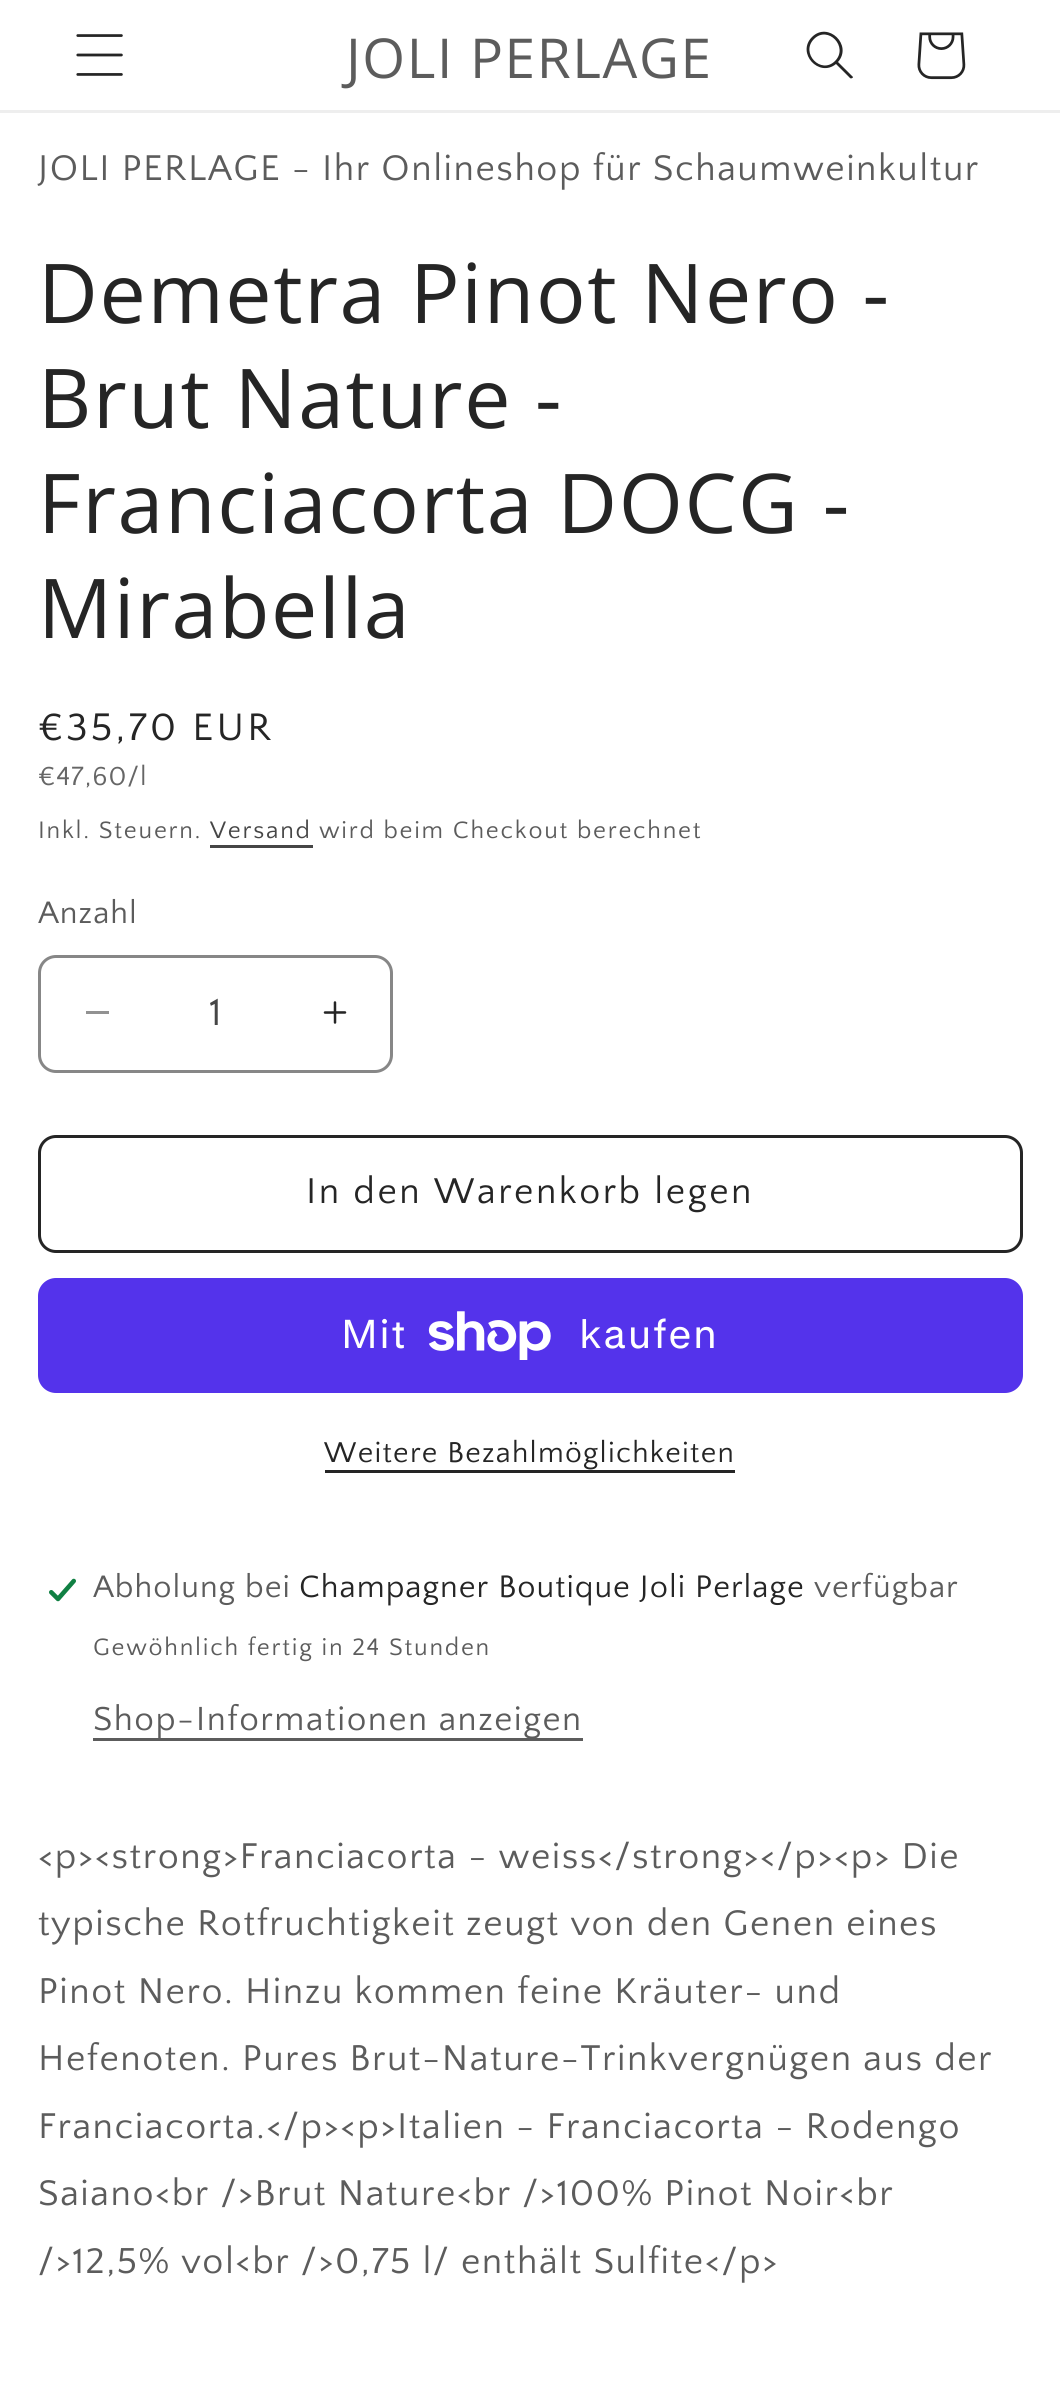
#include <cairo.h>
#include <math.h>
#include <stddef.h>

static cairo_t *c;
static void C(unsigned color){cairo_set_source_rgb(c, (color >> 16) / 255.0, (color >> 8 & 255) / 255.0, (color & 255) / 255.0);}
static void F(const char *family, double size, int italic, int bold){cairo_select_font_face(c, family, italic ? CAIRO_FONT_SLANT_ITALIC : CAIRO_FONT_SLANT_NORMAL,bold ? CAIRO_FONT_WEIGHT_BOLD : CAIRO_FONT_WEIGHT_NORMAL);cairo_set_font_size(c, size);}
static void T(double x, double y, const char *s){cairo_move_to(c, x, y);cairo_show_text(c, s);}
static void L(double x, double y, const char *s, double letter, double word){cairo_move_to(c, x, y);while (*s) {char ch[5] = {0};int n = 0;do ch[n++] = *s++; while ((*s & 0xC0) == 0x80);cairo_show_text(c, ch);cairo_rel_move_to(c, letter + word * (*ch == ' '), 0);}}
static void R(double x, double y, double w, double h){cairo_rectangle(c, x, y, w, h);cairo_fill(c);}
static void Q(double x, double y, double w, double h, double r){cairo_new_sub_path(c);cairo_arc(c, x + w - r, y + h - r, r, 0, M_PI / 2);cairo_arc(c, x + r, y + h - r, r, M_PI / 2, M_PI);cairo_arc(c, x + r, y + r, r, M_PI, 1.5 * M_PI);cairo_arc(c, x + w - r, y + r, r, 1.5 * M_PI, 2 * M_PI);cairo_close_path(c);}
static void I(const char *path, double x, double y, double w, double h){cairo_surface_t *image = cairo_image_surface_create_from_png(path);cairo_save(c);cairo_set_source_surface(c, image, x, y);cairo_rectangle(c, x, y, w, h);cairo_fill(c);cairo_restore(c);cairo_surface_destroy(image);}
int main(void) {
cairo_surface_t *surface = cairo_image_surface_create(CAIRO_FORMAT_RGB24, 1060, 2393);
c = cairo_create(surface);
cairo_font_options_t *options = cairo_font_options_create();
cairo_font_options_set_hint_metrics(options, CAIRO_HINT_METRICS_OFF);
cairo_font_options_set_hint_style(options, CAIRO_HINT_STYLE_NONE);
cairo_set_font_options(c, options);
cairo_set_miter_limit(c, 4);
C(0xffffff);
cairo_paint(c);
C(0xeeeeee);
R(0,110,1060,3);
I("1.png",76,34,47,42);
F("Open Sans",55,0,0);
C(0x5c5c5c);
L(346,78,"JOLI PERLAGE",1.6,0);
C(0x252525);
cairo_set_fill_rule(c,CAIRO_FILL_RULE_EVEN_ODD);
cairo_new_path(c);
cairo_move_to(c,835,61);
cairo_curve_to(c,821,75,800,53,814,39);
cairo_curve_to(c,828,25,849,47,835,61);
cairo_move_to(c,836,64);
cairo_curve_to(c,819,78,796,53,812,37);
cairo_curve_to(c,828,21,853,45,838,62);
cairo_line_to(c,853,77);
cairo_curve_to(c,853,78,851,79,850,78);
cairo_close_path(c);
cairo_fill(c);
I("2.png",917,32,49,48);
F("Quattrocento Sans",37.5,0,0);
C(0x5c5c5c);
L(38,180,"JOLI PERLAGE - Ihr Onlineshop für Schaumweinkultur",1.5,0);
F("Open Sans",82.5,0,0);
C(0x252525);
L(38,323,"Demetra Pinot Nero -",1.6,0);
L(38,428,"Brut Nature -",1.6,0);
L(38,533,"Franciacorta DOCG -",1.6,0);
L(38,638,"Mirabella",1.6,0);
F("Quattrocento Sans",40,0,0);
L(38,740,"€35,70 EUR",3.25,0);
F("Quattrocento Sans",27.5,0,0);
C(0x666666);
L(38,785,"€47,60/l",1,0);
F("Quattrocento Sans",25,0,0);
C(0x5c5c5c);
L(38,838,"Inkl. Steuern.",1.75,0);
C(0x464646);
L(210,838,"Versand",1.75,0);
R(210,845,103,3);
C(0x5c5c5c);
L(319,838,"wird beim Checkout berechnet",1.75,0);
F("Quattrocento Sans",32.5,0,0);
L(38,923,"Anzahl",1,0);
C(0x929292);
R(86,1011,23,3);
I("3.png",323,1001,24,23);
Q(39.5,956.5,352,115,16.5);
C(0x878787);
cairo_set_line_width(c,3);
cairo_stroke(c);
F("Quattrocento Sans",40,0,0);
C(0x464646);
T(209,1025,"1");
Q(39.5,1136.5,982,115,16.5);
C(0x252525);
cairo_stroke(c);
F("Quattrocento Sans",37.5,0,0);
L(306,1203,"In den Warenkorb legen",2.5,0);
C(0x5433eb);
Q(38,1278,985,115,18);
cairo_fill(c);
F("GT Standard",40,0,0);
C(0xffffff);
L(341,1348,"Mit",1.5,0);
I("4.png",428,1311,123,49);
L(579,1348,"kaufen",1.5,0);
F("Quattrocento Sans",30,0,0);
C(0x252525);
L(324,1462,"Weitere Bezahlmöglichkeiten",1.25,0);
R(325,1470,410,3);
I("5.png",49,1578,27,24);
F("Quattrocento Sans",32.5,0,0);
C(0x5c5c5c);
L(93,1597,"Abholung bei",1,0);
C(0x252525);
L(299,1597,"Champagner Boutique Joli Perlage",1,0);
C(0x5c5c5c);
L(814,1597,"verfügbar",1,0);
F("Quattrocento Sans",25,0,0);
L(93,1655,"Gewöhnlich fertig in 24 Stunden",1.75,0);
R(93,1738,490,3);
F("Quattrocento Sans",35,0,0);
L(93,1730,"Shop-Informationen anzeigen",1.5,0);
F("Quattrocento Sans",37.5,0,0);
L(38,1868,"<p><strong>Franciacorta - weiss</strong></p><p> Die",1.5,0);
L(38,1935,"typische Rotfruchtigkeit zeugt von den Genen eines",1.5,0);
L(38,2003,"Pinot Nero. Hinzu kommen feine Kräuter- und",1.5,0);
L(38,2070,"Hefenoten. Pures Brut-Nature-Trinkvergnügen aus der",1.5,0);
L(38,2138,"Franciacorta.</p><p>Italien - Franciacorta - Rodengo",1.5,0);
L(38,2205,"Saiano<br />Brut Nature<br />100% Pinot Noir<br",1.5,0);
L(38,2273,"/>12,5% vol<br />0,75 l/ enthält Sulfite</p>",1.5,0);
cairo_surface_write_to_png(surface, "o.png");
cairo_font_options_destroy(options);
cairo_destroy(c);
cairo_surface_destroy(surface);
return 0;
}
